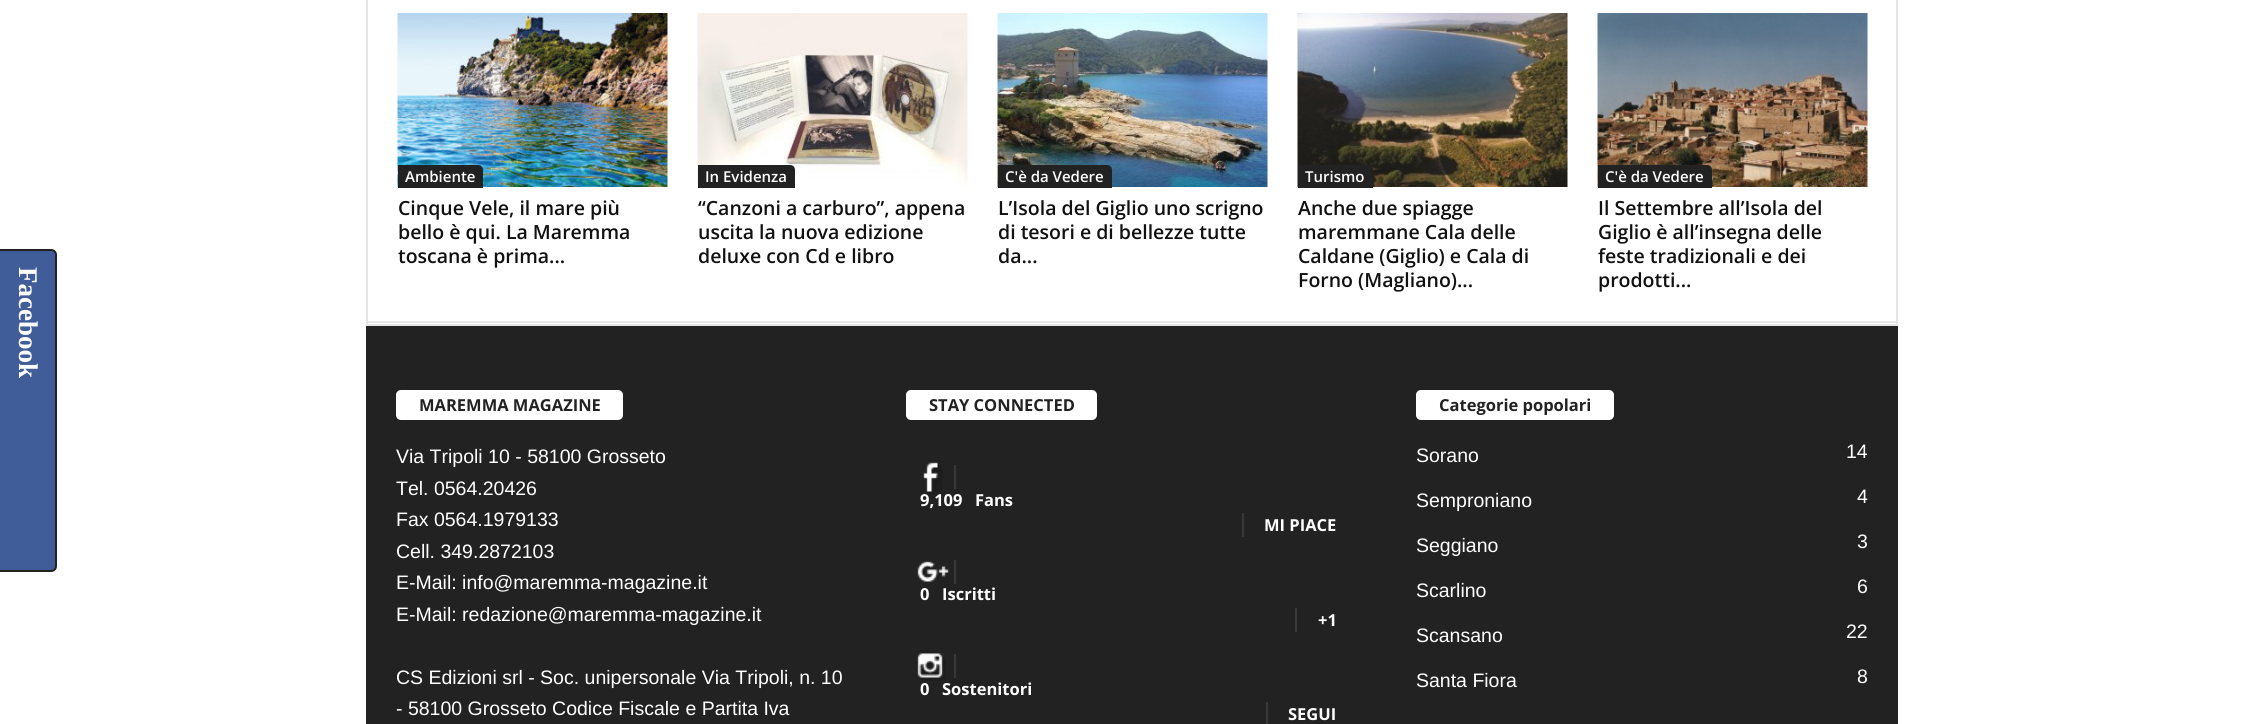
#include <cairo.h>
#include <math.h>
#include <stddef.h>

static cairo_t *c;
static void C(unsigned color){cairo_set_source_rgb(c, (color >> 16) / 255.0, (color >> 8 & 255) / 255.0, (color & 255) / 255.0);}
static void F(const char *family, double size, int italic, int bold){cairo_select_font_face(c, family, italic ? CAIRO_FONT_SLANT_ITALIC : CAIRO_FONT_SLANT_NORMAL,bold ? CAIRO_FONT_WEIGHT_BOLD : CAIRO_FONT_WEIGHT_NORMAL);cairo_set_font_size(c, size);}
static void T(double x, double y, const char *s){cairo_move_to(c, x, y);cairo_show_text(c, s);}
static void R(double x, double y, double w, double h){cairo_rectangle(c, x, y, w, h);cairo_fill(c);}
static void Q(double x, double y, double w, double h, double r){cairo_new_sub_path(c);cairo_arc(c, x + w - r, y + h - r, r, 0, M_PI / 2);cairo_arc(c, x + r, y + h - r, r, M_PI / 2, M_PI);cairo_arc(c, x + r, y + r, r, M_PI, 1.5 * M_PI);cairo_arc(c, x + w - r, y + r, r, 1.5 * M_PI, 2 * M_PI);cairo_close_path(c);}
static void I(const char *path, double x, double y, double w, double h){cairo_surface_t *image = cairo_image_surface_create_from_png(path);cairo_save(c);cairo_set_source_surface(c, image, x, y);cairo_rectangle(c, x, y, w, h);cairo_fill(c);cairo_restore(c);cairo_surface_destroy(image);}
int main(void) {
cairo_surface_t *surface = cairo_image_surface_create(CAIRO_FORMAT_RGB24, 2263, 724);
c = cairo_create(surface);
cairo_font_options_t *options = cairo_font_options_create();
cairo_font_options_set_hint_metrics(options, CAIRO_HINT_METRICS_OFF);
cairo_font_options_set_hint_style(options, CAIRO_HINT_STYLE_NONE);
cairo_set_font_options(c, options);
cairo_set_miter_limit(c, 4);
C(0xffffff);
cairo_paint(c);
C(0x405d9a);
cairo_new_path(c);
cairo_move_to(c,-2,250);
cairo_line_to(c,51,250);
cairo_curve_to(c,54,250,56,252,56,255);
cairo_line_to(c,56,566);
cairo_curve_to(c,56,569,54,571,51,571);
cairo_line_to(c,-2,571);
cairo_close_path(c);
cairo_fill_preserve(c);
C(0x222222);
cairo_stroke(c);
F("Liberation Serif",27,0,1);
C(0xffffff);
cairo_save(c);
cairo_translate(c,19,267);
cairo_rotate(c,90 * M_PI / 180);
T(0,0,"Facebook");
cairo_restore(c);
C(0xe6e6e6);
R(366,321,1532,2);
R(366,0,2,321);
I("1.png",397,13,271,174);
C(0x222222);
cairo_new_path(c);
cairo_move_to(c,398,165);
cairo_line_to(c,478,165);
cairo_curve_to(c,481,165,483,167,483,170);
cairo_line_to(c,483,188);
cairo_line_to(c,398,188);
cairo_close_path(c);
cairo_fill(c);
F("Open Sans SemiBold",15,0,0);
C(0xffffff);
T(405,182,"Ambiente");
F("Open Sans SemiBold",19.5,0,0);
C(0x111111);
T(398,215,"Cinque Vele, il mare più");
T(398,239,"bello è qui. La Maremma");
T(398,263,"toscana è prima...");
I("2.png",697,13,271,174);
C(0x222222);
cairo_new_path(c);
cairo_move_to(c,698,165);
cairo_line_to(c,790,165);
cairo_curve_to(c,793,165,795,167,795,170);
cairo_line_to(c,795,188);
cairo_line_to(c,698,188);
cairo_close_path(c);
cairo_fill(c);
F("Open Sans SemiBold",15,0,0);
C(0xffffff);
T(705,182,"In Evidenza");
F("Open Sans SemiBold",19.5,0,0);
C(0x111111);
T(698,215,"“Canzoni a carburo”, appena");
T(698,239,"uscita la nuova edizione");
T(698,263,"deluxe con Cd e libro");
I("3.png",997,13,271,174);
C(0x222222);
cairo_new_path(c);
cairo_move_to(c,998,165);
cairo_line_to(c,1107,165);
cairo_curve_to(c,1110,165,1112,167,1112,170);
cairo_line_to(c,1112,188);
cairo_line_to(c,998,188);
cairo_close_path(c);
cairo_fill(c);
F("Open Sans SemiBold",15,0,0);
C(0xffffff);
T(1005,182,"C'è da Vedere");
F("Open Sans SemiBold",19.5,0,0);
C(0x111111);
T(998,215,"L’Isola del Giglio uno scrigno");
T(998,239,"di tesori e di bellezze tutte");
T(998,263,"da...");
I("4.png",1297,13,271,174);
C(0x222222);
cairo_new_path(c);
cairo_move_to(c,1298,165);
cairo_line_to(c,1368,165);
cairo_curve_to(c,1371,165,1373,167,1373,170);
cairo_line_to(c,1373,188);
cairo_line_to(c,1298,188);
cairo_close_path(c);
cairo_fill(c);
F("Open Sans SemiBold",15,0,0);
C(0xffffff);
T(1305,182,"Turismo");
F("Open Sans SemiBold",19.5,0,0);
C(0x111111);
T(1298,215,"Anche due spiagge");
T(1298,239,"maremmane Cala delle");
T(1298,263,"Caldane (Giglio) e Cala di");
T(1298,287,"Forno (Magliano)...");
I("5.png",1597,13,271,174);
C(0x222222);
cairo_new_path(c);
cairo_move_to(c,1598,165);
cairo_line_to(c,1707,165);
cairo_curve_to(c,1710,165,1712,167,1712,170);
cairo_line_to(c,1712,188);
cairo_line_to(c,1598,188);
cairo_close_path(c);
cairo_fill(c);
F("Open Sans SemiBold",15,0,0);
C(0xffffff);
T(1605,182,"C'è da Vedere");
F("Open Sans SemiBold",19.5,0,0);
C(0x111111);
T(1598,215,"Il Settembre all’Isola del");
T(1598,239,"Giglio è all’insegna delle");
T(1598,263,"feste tradizionali e dei");
T(1598,287,"prodotti...");
C(0xe6e6e6);
R(1896,0,2,321);
R(366,324,1532,2);
R(366,323,2,1);
R(1896,323,2,1);
C(0x222222);
R(366,326,1532,398);
C(0xffffff);
Q(396,390,227,30,5);
cairo_fill(c);
F("Open Sans",16.5,0,1);
C(0x222222);
T(419,411,"MAREMMA MAGAZINE");
F("Liberation Sans",19.5,0,0);
C(0xffffff);
T(396,463,"Via Tripoli 10 - 58100 Grosseto");
T(396,495,"Tel. 0564.20426");
T(396,526,"Fax 0564.1979133");
T(396,558,"Cell. 349.2872103");
T(396,589,"E-Mail: info@maremma-magazine.it");
T(396,621,"E-Mail: redazione@maremma-magazine.it");
T(396,684,"CS Edizioni srl - Soc. unipersonale Via Tripoli, n. 10");
T(396,715,"- 58100 Grosseto Codice Fiscale e Partita Iva");
Q(906,390,191,30,5);
cairo_fill(c);
F("Open Sans",16.5,0,1);
C(0x222222);
T(929,411,"STAY CONNECTED");
I("6.png",923,462,20,32);
C(0x383838);
R(954,465,2,24);
C(0xffffff);
T(920,506,"9,109");
T(975,506,"Fans");
C(0x383838);
R(1242,513,2,24);
C(0xffffff);
T(1264,531,"MI PIACE");
I("7.png",917,561,32,21);
C(0x383838);
R(954,560,2,24);
C(0xffffff);
T(920,600,"0");
T(942,600,"Iscritti");
C(0x383838);
R(1295,608,2,24);
C(0xffffff);
T(1318,626,"+1");
I("8.png",917,653,29,28);
C(0x383838);
R(954,654,2,24);
C(0xffffff);
T(920,695,"0");
T(942,695,"Sostenitori");
C(0x383838);
R(1266,702,2,22);
C(0xffffff);
T(1288,720,"SEGUI");
Q(1416,390,198,30,5);
cairo_fill(c);
C(0x222222);
T(1439,411,"Categorie popolari");
F("Liberation Sans",19.5,0,0);
C(0xffffff);
T(1416,462,"Sorano");
T(1846,458,"14");
T(1416,507,"Semproniano");
T(1857,503,"4");
T(1416,552,"Seggiano");
T(1857,548,"3");
T(1416,597,"Scarlino");
T(1857,593,"6");
T(1416,642,"Scansano");
T(1846,638,"22");
T(1416,687,"Santa Fiora");
T(1857,683,"8");
cairo_surface_write_to_png(surface, "o.png");
cairo_font_options_destroy(options);
cairo_destroy(c);
cairo_surface_destroy(surface);
return 0;
}
